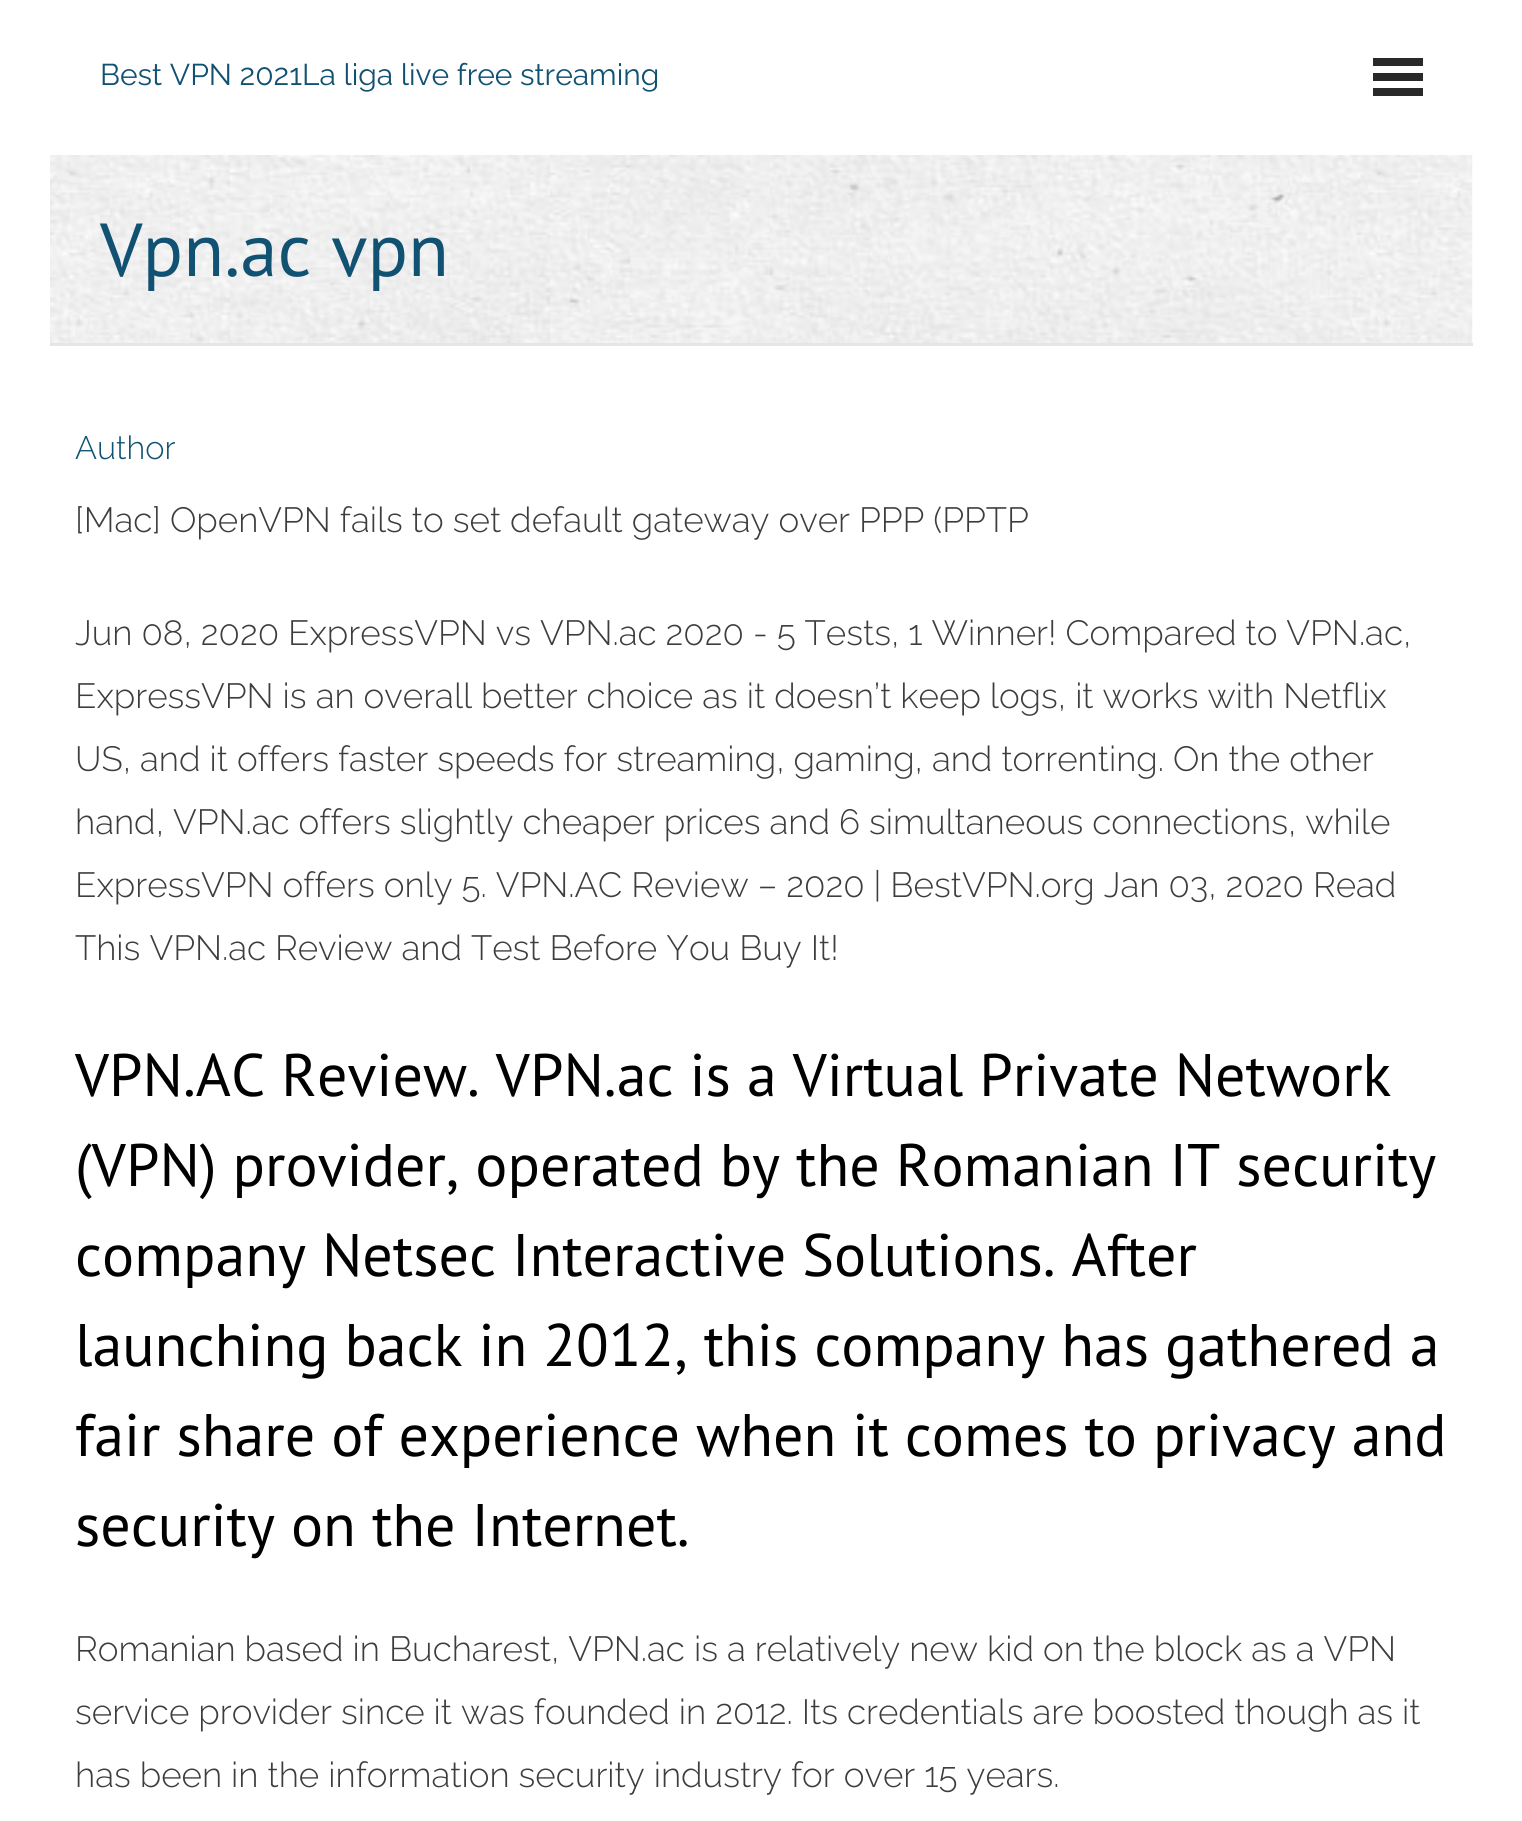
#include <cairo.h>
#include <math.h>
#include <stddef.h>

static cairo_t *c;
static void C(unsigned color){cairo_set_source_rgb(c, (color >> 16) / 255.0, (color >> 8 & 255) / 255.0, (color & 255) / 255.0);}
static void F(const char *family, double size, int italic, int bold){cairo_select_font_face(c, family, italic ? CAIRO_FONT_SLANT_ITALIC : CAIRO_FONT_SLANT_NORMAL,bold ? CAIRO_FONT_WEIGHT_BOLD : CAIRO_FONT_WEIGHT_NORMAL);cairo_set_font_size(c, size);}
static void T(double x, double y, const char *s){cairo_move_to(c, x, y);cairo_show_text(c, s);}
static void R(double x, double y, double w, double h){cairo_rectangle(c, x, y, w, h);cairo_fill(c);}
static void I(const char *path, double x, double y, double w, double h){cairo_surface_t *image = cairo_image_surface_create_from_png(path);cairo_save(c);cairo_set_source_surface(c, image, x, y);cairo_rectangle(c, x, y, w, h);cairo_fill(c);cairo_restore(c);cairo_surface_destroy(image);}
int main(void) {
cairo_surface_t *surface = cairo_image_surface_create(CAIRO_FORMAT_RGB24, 1522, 1821);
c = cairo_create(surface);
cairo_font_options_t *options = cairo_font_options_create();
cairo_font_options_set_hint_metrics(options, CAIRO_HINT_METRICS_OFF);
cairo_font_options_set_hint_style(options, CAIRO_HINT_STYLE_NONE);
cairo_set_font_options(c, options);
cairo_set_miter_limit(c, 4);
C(0xffffff);
cairo_paint(c);
F("Raleway",30,0,0);
C(0x115172);
T(100,85,"Best VPN 2021La liga live free streaming");
C(0x292929);
R(1373,58,50,8);
R(1373,73,50,8);
R(1373,88,50,8);
I("1.png",50,155,1423,188);
C(0xe5e5e5);
R(50,343,1423,3);
F("PT Sans",75,0,0);
C(0x115172);
T(100,276,"Vpn.ac vpn");
F("Raleway Light",32.5,0,0);
T(75,459,"Author");
F("Raleway Light",35,0,0);
C(0x3d3d3d);
T(75,532,"[Mac] OpenVPN fails to set default gateway over PPP (PPTP");
T(75,645,"Jun 08, 2020 ExpressVPN vs VPN.ac 2020 - 5 Tests, 1 Winner! Compared to VPN.ac,");
T(75,708,"ExpressVPN is an overall better choice as it doesn’t keep logs, it works with Netflix");
T(75,771,"US, and it offers faster speeds for streaming, gaming, and torrenting. On the other");
T(75,834,"hand, VPN.ac offers slightly cheaper prices and 6 simultaneous connections, while");
T(75,897,"ExpressVPN offers only 5. VPN.AC Review – 2020 | BestVPN.org Jan 03, 2020 Read");
T(75,960,"This VPN.ac Review and Test Before You Buy It!");
F("PT Sans",60,0,0);
C(0x000000);
T(75,1096,"VPN.AC Review. VPN.ac is a Virtual Private Network");
T(75,1186,"(VPN) provider, operated by the Romanian IT security");
T(75,1276,"company Netsec Interactive Solutions. After");
T(75,1366,"launching back in 2012, this company has gathered a");
T(75,1456,"fair share of experience when it comes to privacy and");
T(75,1546,"security on the Internet.");
F("Raleway Light",35,0,0);
C(0x3d3d3d);
T(75,1661,"Romanian based in Bucharest, VPN.ac is a relatively new kid on the block as a VPN");
T(75,1724,"service provider since it was founded in 2012. Its credentials are boosted though as it");
T(75,1787,"has been in the information security industry for over 15 years.");
cairo_surface_write_to_png(surface, "o.png");
cairo_font_options_destroy(options);
cairo_destroy(c);
cairo_surface_destroy(surface);
return 0;
}
